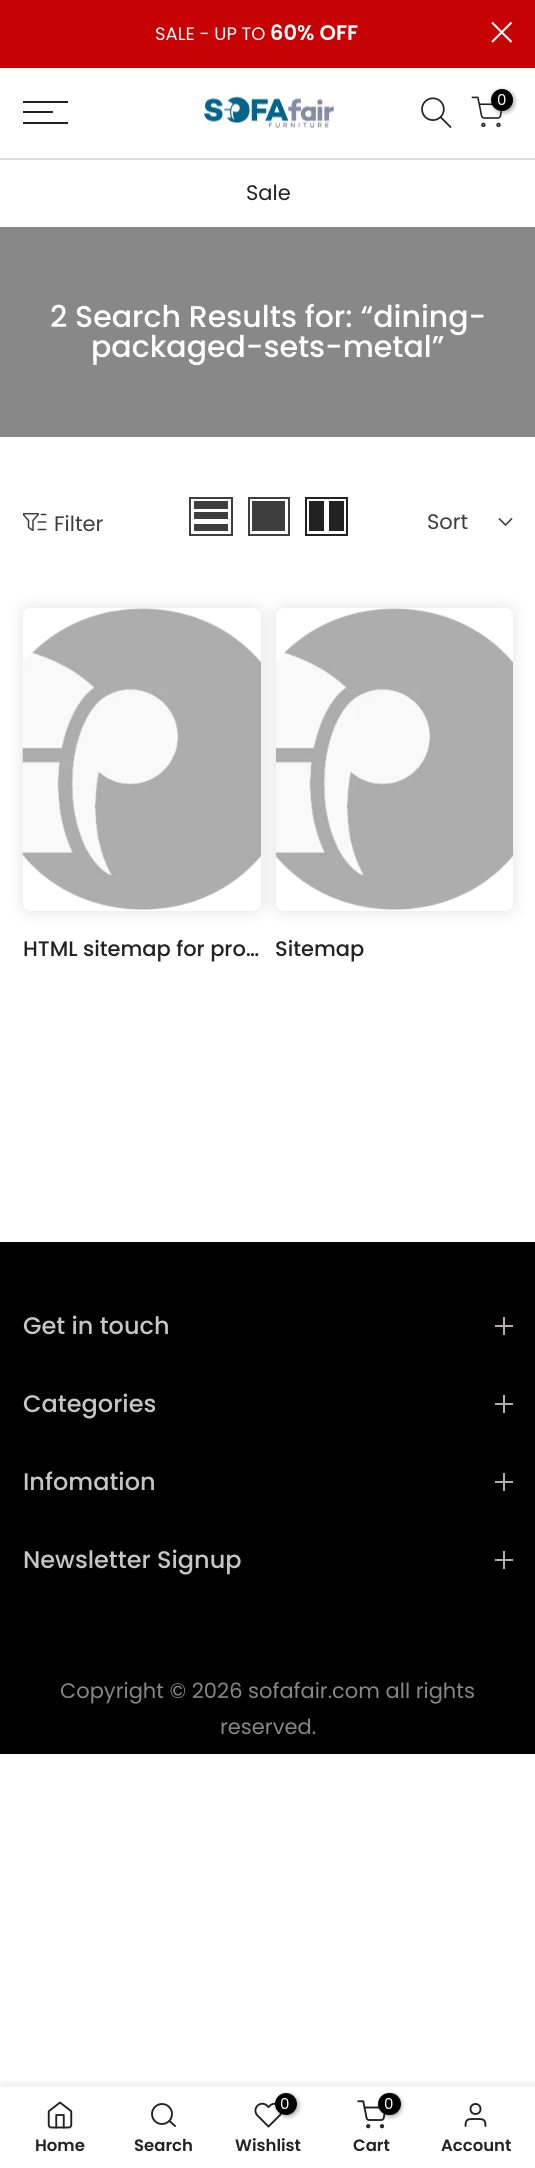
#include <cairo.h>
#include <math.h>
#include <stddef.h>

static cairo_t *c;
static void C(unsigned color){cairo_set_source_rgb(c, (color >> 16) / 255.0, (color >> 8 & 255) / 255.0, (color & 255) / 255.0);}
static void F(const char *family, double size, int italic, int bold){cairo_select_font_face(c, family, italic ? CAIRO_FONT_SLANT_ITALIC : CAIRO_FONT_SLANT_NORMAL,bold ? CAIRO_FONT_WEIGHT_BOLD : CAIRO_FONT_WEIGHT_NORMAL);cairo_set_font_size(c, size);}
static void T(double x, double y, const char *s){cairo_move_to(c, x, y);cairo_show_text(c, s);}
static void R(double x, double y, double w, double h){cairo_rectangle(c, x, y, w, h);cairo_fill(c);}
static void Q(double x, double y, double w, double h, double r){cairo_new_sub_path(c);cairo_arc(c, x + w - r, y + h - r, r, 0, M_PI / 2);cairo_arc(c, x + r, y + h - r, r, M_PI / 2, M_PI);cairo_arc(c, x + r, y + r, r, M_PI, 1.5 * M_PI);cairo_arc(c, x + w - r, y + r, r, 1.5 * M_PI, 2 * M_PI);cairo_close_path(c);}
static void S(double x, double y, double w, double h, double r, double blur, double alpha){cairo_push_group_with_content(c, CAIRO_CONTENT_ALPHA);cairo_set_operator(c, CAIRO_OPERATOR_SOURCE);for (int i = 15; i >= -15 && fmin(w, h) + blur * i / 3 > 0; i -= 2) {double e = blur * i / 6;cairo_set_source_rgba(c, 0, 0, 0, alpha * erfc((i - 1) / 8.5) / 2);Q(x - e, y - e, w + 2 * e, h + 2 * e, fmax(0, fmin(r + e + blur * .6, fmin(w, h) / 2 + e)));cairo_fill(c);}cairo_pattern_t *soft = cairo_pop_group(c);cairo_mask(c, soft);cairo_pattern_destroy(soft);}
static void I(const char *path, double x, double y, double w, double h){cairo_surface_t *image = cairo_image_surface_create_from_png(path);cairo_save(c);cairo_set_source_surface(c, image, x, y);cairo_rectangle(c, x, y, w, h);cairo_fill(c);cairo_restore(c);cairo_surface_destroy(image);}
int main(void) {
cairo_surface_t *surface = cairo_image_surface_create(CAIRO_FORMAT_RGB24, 535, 2168);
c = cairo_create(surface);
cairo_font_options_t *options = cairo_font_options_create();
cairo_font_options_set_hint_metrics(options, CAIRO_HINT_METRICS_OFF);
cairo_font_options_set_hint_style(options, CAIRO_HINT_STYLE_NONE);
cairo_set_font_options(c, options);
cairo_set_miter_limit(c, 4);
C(0xffffff);
cairo_paint(c);
C(0xc60205);
R(0,0,535,68);
F("Poppins",18,0,0);
C(0xffffff);
T(155,40,"SALE - UP TO");
F("Poppins SemiBold",21,0,0);
T(270,40,"60% OFF");
cairo_new_path(c);
cairo_move_to(c,511.5,22.5);
cairo_line_to(c,492,42);
cairo_move_to(c,511.5,42);
cairo_line_to(c,492,22.5);
cairo_set_line_width(c,2.1);
cairo_stroke(c);
C(0x222222);
R(23,101,45,2);
R(23,111,30,2);
R(23,122,45,2);
I("1.png",204,96,130,32);
I("2.png",421,97,31,31);
I("3.png",471,96,32,32);
C(0x000000);
S(492,90,23,23,11.5,2,.3);
C(0x000000);
cairo_arc(c,502,100,11,0,2 * M_PI);
cairo_fill(c);
F("Poppins",15,0,0);
C(0xffffff);
T(497,105,"0");
C(0xdddddd);
R(0,158,535,2);
F("Poppins",21,0,0);
C(0x222222);
T(246,200,"Sale");
C(0x888888);
R(0,227,535,210);
F("Poppins Medium",30,0,0);
C(0xffffff);
T(50,327,"2 Search Results for: “dining-");
T(91,357,"packaged-sets-metal”");
I("4.png",23,513,24,18);
F("Poppins",21,0,0);
C(0x3e3e3e);
T(54,531,"Filter");
cairo_rectangle(c,190,498,42,37);
cairo_set_line_width(c,2);
cairo_stroke(c);
R(194,524,34,7);
R(194,512,34,7);
R(194,501,34,8);
cairo_rectangle(c,249,498,40,37);
cairo_stroke(c);
R(252,501,33,30);
cairo_rectangle(c,306,498,41,37);
C(0x222222);
cairo_stroke(c);
R(329,501,15,30);
R(309,501,15,30);
C(0x3e3e3e);
T(427,529,"Sort");
cairo_new_path(c);
cairo_move_to(c,511.5,519);
cairo_line_to(c,505.5,525);
cairo_line_to(c,499.5,519);
cairo_set_line_width(c,1.6);
cairo_set_line_cap(c,CAIRO_LINE_CAP_SQUARE);
cairo_stroke(c);
cairo_save(c);
cairo_set_fill_rule(c,CAIRO_FILL_RULE_EVEN_ODD);
cairo_new_path(c);
cairo_move_to(c,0,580);
cairo_line_to(c,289,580);
cairo_line_to(c,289,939);
cairo_line_to(c,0,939);
cairo_close_path(c);
cairo_move_to(c,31,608);
cairo_line_to(c,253,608);
cairo_curve_to(c,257.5,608,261,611.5,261,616);
cairo_line_to(c,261,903);
cairo_curve_to(c,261,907.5,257.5,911,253,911);
cairo_line_to(c,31,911);
cairo_curve_to(c,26.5,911,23,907.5,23,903);
cairo_line_to(c,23,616);
cairo_curve_to(c,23,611.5,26.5,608,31,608);
cairo_close_path(c);
cairo_clip(c);
C(0x000000);
S(23,608,238,303,8,9,.12);
cairo_restore(c);
I("5.png",22,608,239,302);
F("Poppins Medium",21,0,0);
C(0x222222);
T(23,956,"HTML sitemap for pro…");
cairo_save(c);
cairo_set_fill_rule(c,CAIRO_FILL_RULE_EVEN_ODD);
cairo_new_path(c);
cairo_move_to(c,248,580);
cairo_line_to(c,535,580);
cairo_line_to(c,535,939);
cairo_line_to(c,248,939);
cairo_close_path(c);
cairo_move_to(c,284,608);
cairo_line_to(c,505,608);
cairo_curve_to(c,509.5,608,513,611.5,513,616);
cairo_line_to(c,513,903);
cairo_curve_to(c,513,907.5,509.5,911,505,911);
cairo_line_to(c,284,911);
cairo_curve_to(c,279.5,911,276,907.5,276,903);
cairo_line_to(c,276,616);
cairo_curve_to(c,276,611.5,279.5,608,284,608);
cairo_close_path(c);
cairo_clip(c);
C(0x000000);
S(276,608,237,303,8,9,.12);
cairo_restore(c);
I("6.png",276,608,237,302);
T(275,956,"Sitemap");
C(0x000000);
R(0,1242,535,512);
F("Poppins Medium",24,0,0);
C(0xc6c6c6);
T(23,1334,"Get in touch");
C(0xb3afaf);
R(503,1317,2,18);
R(495,1325,18,2);
C(0xc6c6c6);
T(23,1412,"Categories");
C(0xb3afaf);
R(503,1395,2,18);
R(495,1403,18,2);
C(0xc6c6c6);
T(23,1490,"Infomation");
C(0xb3afaf);
R(503,1473,2,18);
R(495,1481,18,2);
C(0xc6c6c6);
T(23,1568,"Newsletter Signup");
C(0xb3afaf);
R(503,1551,2,18);
R(495,1559,18,2);
F("Poppins",21,0,0);
C(0x878787);
T(60,1698,"Copyright © 2026 sofafair.com all rights");
T(220,1734,"reserved.");
cairo_save(c);
cairo_rectangle(c,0,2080,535,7);
cairo_clip(c);
C(0x000000);
S(0,2087,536,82,0,7,.12);
cairo_restore(c);
I("7.png",47,2101,26,28);
F("Poppins SemiBold",16.5,0,0);
C(0x222222);
T(35,2151,"Home");
cairo_new_path(c);
cairo_arc(c,162,2114,10,0,2 * M_PI);
cairo_set_line_width(c,1.9);
cairo_set_line_cap(c,CAIRO_LINE_CAP_BUTT);
cairo_stroke(c);
cairo_new_path(c);
cairo_move_to(c,175,2126);
cairo_line_to(c,169.5,2121);
cairo_set_line_cap(c,CAIRO_LINE_CAP_ROUND);
cairo_set_line_join(c,CAIRO_LINE_JOIN_ROUND);
cairo_stroke(c);
T(134,2151,"Search");
I("8.png",254,2102,28,26);
C(0x000000);
S(276,2094,23,23,11.5,2,.3);
C(0x000000);
cairo_arc(c,286,2104,11,0,2 * M_PI);
cairo_fill(c);
F("Poppins",15,0,0);
C(0xffffff);
T(280,2109,"0");
F("Poppins SemiBold",16.5,0,0);
C(0x222222);
T(235,2151,"Wishlist");
I("9.png",357,2100,29,29);
C(0x000000);
S(380,2094,22,23,11,2,.3);
C(0x000000);
Q(378,2093,23,22,11);
cairo_fill(c);
F("Poppins",15,0,0);
C(0xffffff);
T(384,2109,"0");
F("Poppins SemiBold",16.5,0,0);
C(0x222222);
T(353,2151,"Cart");
cairo_new_path(c);
cairo_arc(c,475.5,2109,5,0,2 * M_PI);
cairo_set_line_cap(c,CAIRO_LINE_CAP_BUTT);
cairo_set_line_join(c,CAIRO_LINE_JOIN_MITER);
cairo_stroke(c);
cairo_new_path(c);
cairo_move_to(c,485.5,2126);
cairo_curve_to(c,485.5,2118.5,482.5,2119,475.5,2119);
cairo_curve_to(c,468.5,2119,465.5,2118.5,465.5,2126);
cairo_set_line_cap(c,CAIRO_LINE_CAP_ROUND);
cairo_set_line_join(c,CAIRO_LINE_JOIN_ROUND);
cairo_stroke(c);
T(441,2151,"Account");
cairo_surface_write_to_png(surface, "o.png");
cairo_font_options_destroy(options);
cairo_destroy(c);
cairo_surface_destroy(surface);
return 0;
}
